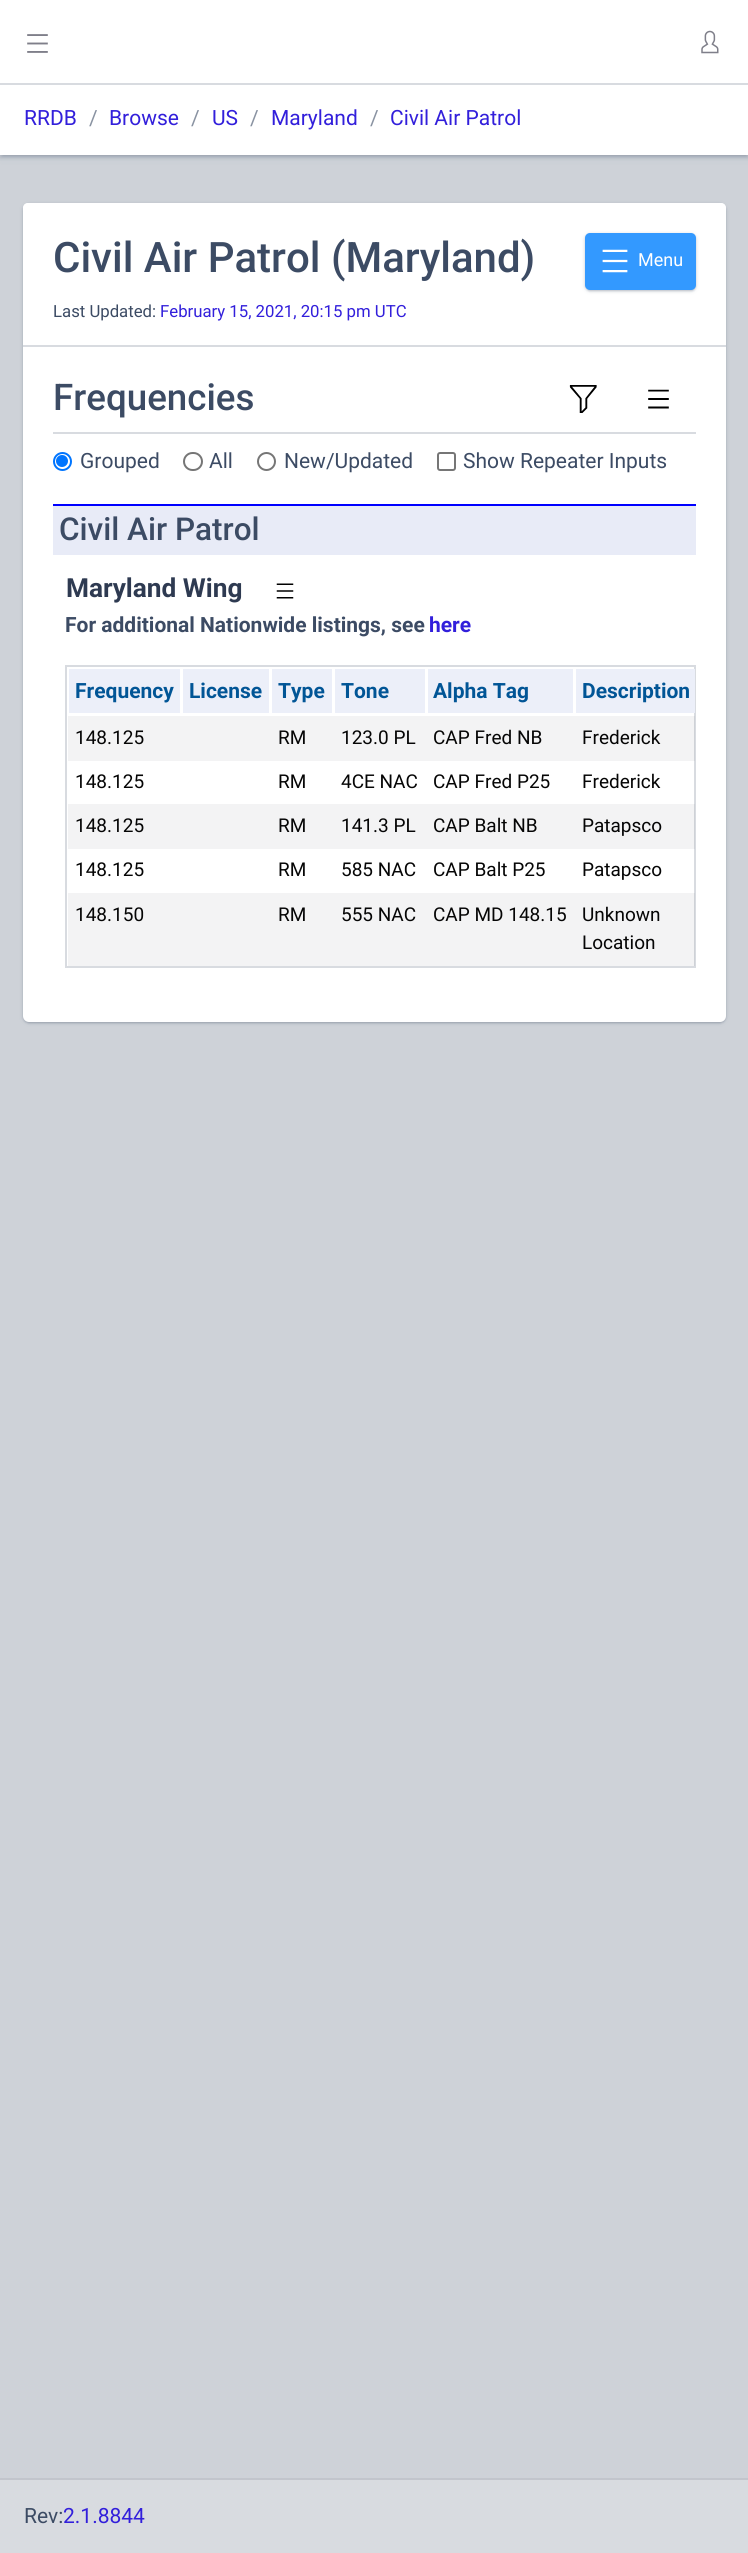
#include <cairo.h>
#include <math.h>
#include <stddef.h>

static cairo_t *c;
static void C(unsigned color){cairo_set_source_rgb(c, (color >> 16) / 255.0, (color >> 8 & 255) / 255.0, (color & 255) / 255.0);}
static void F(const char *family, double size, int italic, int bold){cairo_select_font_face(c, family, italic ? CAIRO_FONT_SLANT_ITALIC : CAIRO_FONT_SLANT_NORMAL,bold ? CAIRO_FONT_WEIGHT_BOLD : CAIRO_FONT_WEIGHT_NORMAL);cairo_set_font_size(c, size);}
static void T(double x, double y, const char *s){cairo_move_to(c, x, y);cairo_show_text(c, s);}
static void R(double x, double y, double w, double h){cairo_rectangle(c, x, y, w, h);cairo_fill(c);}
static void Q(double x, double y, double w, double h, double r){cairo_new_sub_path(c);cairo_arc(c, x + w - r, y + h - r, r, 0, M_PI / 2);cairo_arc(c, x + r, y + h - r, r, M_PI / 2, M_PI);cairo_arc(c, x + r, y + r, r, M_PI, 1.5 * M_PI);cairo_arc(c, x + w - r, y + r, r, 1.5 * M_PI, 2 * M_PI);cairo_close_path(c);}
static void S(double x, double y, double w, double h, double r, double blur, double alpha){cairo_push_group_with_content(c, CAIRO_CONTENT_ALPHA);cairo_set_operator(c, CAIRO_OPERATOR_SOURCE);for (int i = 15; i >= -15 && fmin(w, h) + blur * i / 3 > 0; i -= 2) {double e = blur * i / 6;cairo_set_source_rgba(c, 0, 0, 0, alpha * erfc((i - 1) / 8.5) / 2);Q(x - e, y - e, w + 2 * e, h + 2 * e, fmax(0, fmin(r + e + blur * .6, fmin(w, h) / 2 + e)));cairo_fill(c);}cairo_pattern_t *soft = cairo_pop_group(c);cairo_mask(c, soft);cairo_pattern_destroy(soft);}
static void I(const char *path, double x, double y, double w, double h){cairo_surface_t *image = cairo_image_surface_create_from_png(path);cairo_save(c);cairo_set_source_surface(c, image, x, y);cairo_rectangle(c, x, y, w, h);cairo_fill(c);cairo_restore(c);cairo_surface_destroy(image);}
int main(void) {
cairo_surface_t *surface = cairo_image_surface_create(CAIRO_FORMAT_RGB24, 748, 2553);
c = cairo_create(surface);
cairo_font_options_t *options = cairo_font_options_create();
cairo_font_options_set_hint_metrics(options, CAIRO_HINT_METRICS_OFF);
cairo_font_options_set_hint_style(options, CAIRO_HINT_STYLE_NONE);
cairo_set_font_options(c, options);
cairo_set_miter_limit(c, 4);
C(0xced2d8);
cairo_paint(c);
C(0x3c4b64);
S(0,2,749,154,0,4,.2);
S(3,8,743,148,0,1,.12);
S(0,3,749,155,0,1.5,.14);
C(0xffffff);
R(0,0,748,155);
I("1.png",27,34,21,19);
I("2.png",701,30,18,24);
C(0xd8dbe0);
R(0,83,748,2);
F("Roboto",21,0,0);
C(0x321fdb);
T(24,125,"RRDB");
C(0x8a93a2);
T(89,125,"/");
C(0x321fdb);
T(109,125,"Browse");
C(0x8a93a2);
T(191,125,"/");
C(0x321fdb);
T(212,125,"US");
C(0x8a93a2);
T(250,125,"/");
C(0x321fdb);
T(271,125,"Maryland");
C(0x8a93a2);
T(370,125,"/");
C(0x321fdb);
T(390,125,"Civil Air Patrol");
C(0x3c4b64);
S(23,204,703,819,6,2,.2);
S(24,207,701,816,5,1,.12);
S(23,204,703,819,6,1,.14);
C(0xffffff);
Q(23,203,703,819,6);
cairo_fill(c);
cairo_new_path(c);
cairo_move_to(c,28,203);
cairo_line_to(c,721,203);
cairo_curve_to(c,724,203,726,205,726,208);
cairo_line_to(c,726,347);
cairo_line_to(c,23,347);
cairo_line_to(c,23,208);
cairo_curve_to(c,23,205,25,203,28,203);
cairo_close_path(c);
cairo_fill(c);
C(0xd8dbe0);
R(23,345,703,2);
F("Roboto Medium",42,0,0);
C(0x3c4b64);
T(53,272,"Civil Air Patrol (Maryland)");
C(0x3c4b64);
S(585,234,111,57,5,2,.2);
S(587,237,108,54,3,1,.12);
S(585,234,111,57,5,1,.14);
C(0x3399ff);
Q(585,233,111,57,5);
cairo_fill(c);
I("3.png",602,249,26,24);
F("Roboto",18,0,0);
C(0xffffff);
T(638,266,"Menu");
F("Roboto",16.75,0,0);
C(0x3c4b64);
T(53,317,"Last Updated:");
C(0x321fdb);
T(160,317,"February 15, 2021, 20:15 pm UTC");
C(0xd8dbe0);
R(53,432,643,2);
F("Roboto Medium",36.75,0,0);
C(0x3c4b64);
T(53,410,"Frequencies");
I("4.png",569,385,28,28);
I("5.png",648,389,21,20);
cairo_arc(c,62.5,461.5,8.5,0,2 * M_PI);
C(0x0075ff);
cairo_stroke(c);
cairo_arc(c,62,461,6,0,2 * M_PI);
cairo_fill(c);
F("Roboto",21,0,0);
C(0x3c4b64);
T(80,468,"Grouped");
Q(184,453,18,17,8.5);
C(0x767676);
cairo_stroke(c);
C(0x3c4b64);
T(209,468,"All");
cairo_new_path(c);
cairo_arc(c,266.5,461.5,8.5,0,2 * M_PI);
C(0x767676);
cairo_stroke(c);
C(0x3c4b64);
T(284,468,"New/Updated");
Q(438,453,17,17,2);
C(0x767676);
cairo_stroke(c);
C(0x3c4b64);
T(463,468,"Show Repeater Inputs");
C(0xe8ebf7);
R(53,506,643,49);
C(0x0000ff);
R(53,504,643,2);
F("Roboto Medium",31.5,0,0);
C(0x3c4b64);
T(59,540,"Civil Air Patrol");
F("Roboto",26.25,0,1);
C(0x2e3a51);
T(66,597,"Maryland Wing");
I("6.png",276,583,18,16);
F("Roboto",21,0,1);
C(0x3c4b64);
T(65,632,"For additional Nationwide listings, see");
C(0x321fdb);
T(429,632,"here");
cairo_rectangle(c,66,666,629,301);
C(0xd8dbe0);
cairo_stroke(c);
C(0xeceff9);
R(69,669,111,44);
C(0x015596);
T(75,698,"Frequency");
C(0xeceff9);
R(183,669,86,44);
C(0x015596);
T(189,698,"License");
C(0xeceff9);
R(272,669,60,44);
C(0x015596);
T(278,698,"Type");
C(0xeceff9);
R(335,669,90,44);
C(0x015596);
T(341,698,"Tone");
C(0xeceff9);
R(428,669,145,44);
C(0x015596);
T(433,698,"Alpha Tag");
C(0xeceff9);
R(576,669,119,44);
C(0x015596);
T(582,698,"Description");
cairo_set_source_rgba(c,0,0,0.082,0.05);
R(68,716,627,45);
F("Roboto",19,0,0);
C(0x050505);
T(75,744,"148.125");
T(278,744,"RM");
T(341,744,"123.0 PL");
T(433,744,"CAP Fred NB");
T(582,744,"Frederick");
T(75,788,"148.125");
T(278,788,"RM");
T(341,788,"4CE NAC");
T(433,788,"CAP Fred P25");
T(582,788,"Frederick");
cairo_set_source_rgba(c,0,0,0.082,0.05);
R(68,804,627,45);
C(0x050505);
T(75,832,"148.125");
T(278,832,"RM");
T(341,832,"141.3 PL");
T(433,832,"CAP Balt NB");
T(582,832,"Patapsco");
T(75,876,"148.125");
T(278,876,"RM");
T(341,876,"585 NAC");
T(433,876,"CAP Balt P25");
T(582,876,"Patapsco");
cairo_set_source_rgba(c,0,0,0.082,0.05);
R(68,893,627,73);
C(0x050505);
T(75,921,"148.150");
T(278,921,"RM");
T(341,921,"555 NAC");
T(433,921,"CAP MD 148.15");
T(582,921,"Unknown");
T(582,949,"Location");
C(0xd8dbe0);
R(0,2480,748,73);
C(0xc2c5cc);
R(0,2478,748,2);
F("Roboto",21,0,0);
C(0x3c4b64);
T(24,2523,"Rev:");
C(0x321fdb);
T(63,2523,"2.1.8844");
cairo_surface_write_to_png(surface, "o.png");
cairo_font_options_destroy(options);
cairo_destroy(c);
cairo_surface_destroy(surface);
return 0;
}
